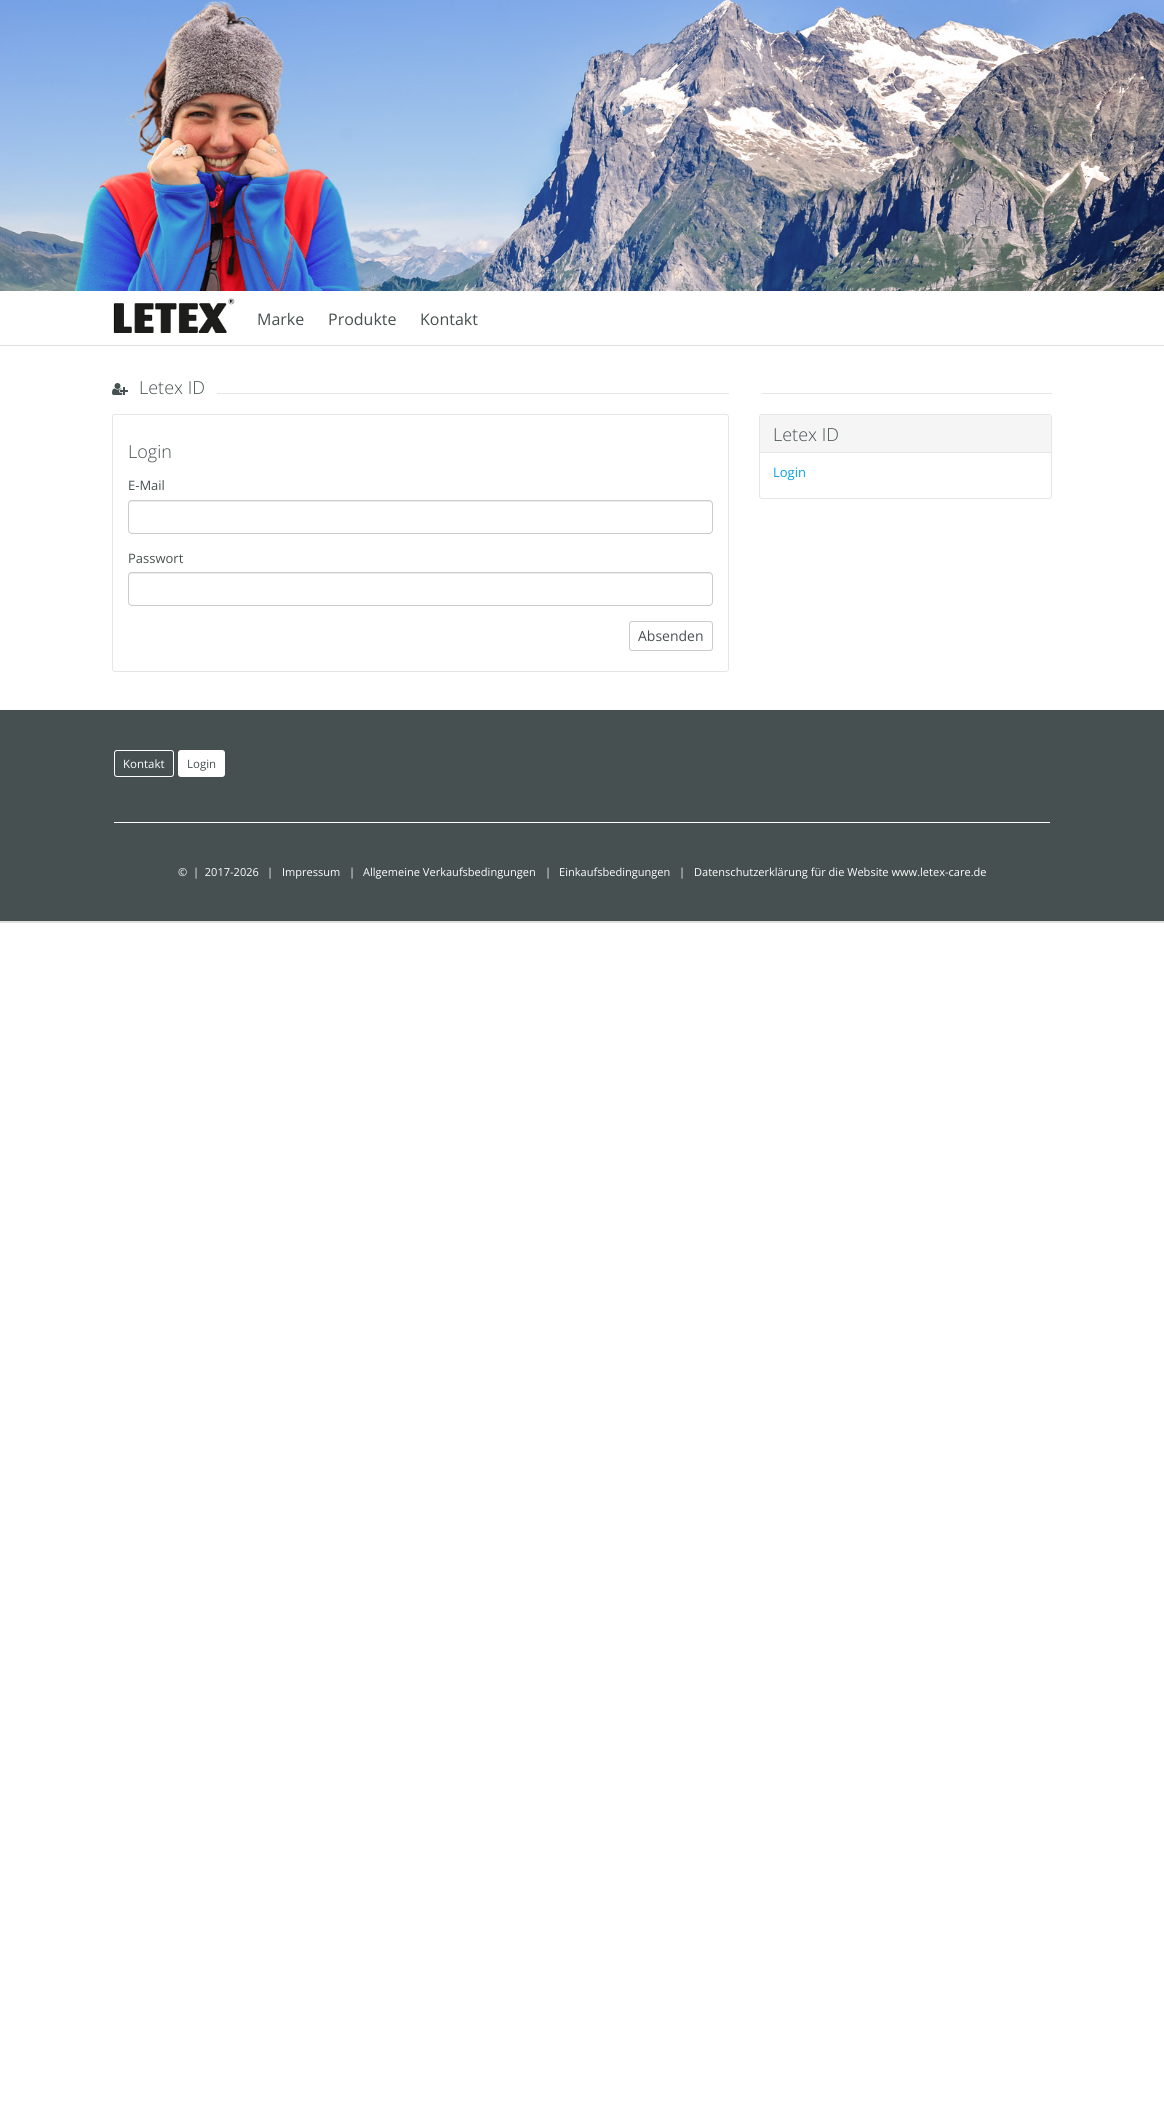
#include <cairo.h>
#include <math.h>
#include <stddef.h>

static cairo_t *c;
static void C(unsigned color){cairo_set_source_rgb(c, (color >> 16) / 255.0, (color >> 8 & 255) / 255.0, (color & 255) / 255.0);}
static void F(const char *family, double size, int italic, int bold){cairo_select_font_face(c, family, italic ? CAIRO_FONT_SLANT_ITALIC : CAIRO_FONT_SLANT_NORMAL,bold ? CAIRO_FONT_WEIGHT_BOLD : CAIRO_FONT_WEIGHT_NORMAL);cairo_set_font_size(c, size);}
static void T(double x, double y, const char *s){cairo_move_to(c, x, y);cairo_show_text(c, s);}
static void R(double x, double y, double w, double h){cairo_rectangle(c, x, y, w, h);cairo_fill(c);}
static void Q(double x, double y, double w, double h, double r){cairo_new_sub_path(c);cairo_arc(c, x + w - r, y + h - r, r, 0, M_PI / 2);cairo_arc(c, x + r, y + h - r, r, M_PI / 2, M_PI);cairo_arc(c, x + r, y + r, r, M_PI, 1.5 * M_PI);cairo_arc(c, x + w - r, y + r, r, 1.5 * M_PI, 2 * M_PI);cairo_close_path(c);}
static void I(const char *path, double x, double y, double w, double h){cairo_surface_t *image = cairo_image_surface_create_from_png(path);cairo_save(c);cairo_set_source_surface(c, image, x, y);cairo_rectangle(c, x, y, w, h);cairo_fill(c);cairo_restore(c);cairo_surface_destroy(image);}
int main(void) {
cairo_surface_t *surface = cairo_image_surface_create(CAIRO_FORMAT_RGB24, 1164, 2122);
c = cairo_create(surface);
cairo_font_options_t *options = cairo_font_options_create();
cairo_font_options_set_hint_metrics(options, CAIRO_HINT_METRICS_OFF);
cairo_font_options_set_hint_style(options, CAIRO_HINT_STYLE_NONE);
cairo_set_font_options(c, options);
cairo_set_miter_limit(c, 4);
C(0xffffff);
cairo_paint(c);
C(0xe0e0e0);
R(0,921,1164,2);
I("1.png",0,0,1164,291);
R(0,345,1164,1);
I("2.png",113,298,122,35);
F("Open Sans",16,0,0);
C(0x465050);
T(257,325,"Marke");
T(328,325,"Produkte");
T(420,325,"Kontakt");
I("3.png",112,383,16,12);
F("Open Sans Light",18,0,0);
T(139,394,"Letex ID");
C(0xe6e6e6);
R(217,393,512,1);
Q(112.5,414.5,616,257,2.5);
cairo_set_line_width(c,1);
cairo_stroke(c);
C(0x465050);
T(128,458,"Login");
F("Open Sans",13,0,0);
T(128,490,"E-Mail");
C(0xececec);
cairo_new_path(c);
cairo_move_to(c,132,502);
cairo_line_to(c,709,502);
cairo_curve_to(c,711,502,712,503,712,505);
cairo_line_to(c,712,504);
cairo_curve_to(c,712,502,711,501,709,501);
cairo_line_to(c,132,501);
cairo_curve_to(c,130,501,129,502,129,504);
cairo_line_to(c,129,505);
cairo_curve_to(c,129,503,130,502,132,502);
cairo_close_path(c);
cairo_fill(c);
Q(128.5,500.5,584,33,3.5);
C(0xcccccc);
cairo_stroke(c);
C(0x465050);
T(128,563,"Passwort");
C(0xececec);
cairo_new_path(c);
cairo_move_to(c,132,574);
cairo_line_to(c,709,574);
cairo_curve_to(c,711,574,712,575,712,577);
cairo_line_to(c,712,576);
cairo_curve_to(c,712,574,711,573,709,573);
cairo_line_to(c,132,573);
cairo_curve_to(c,130,573,129,574,129,576);
cairo_line_to(c,129,577);
cairo_curve_to(c,129,575,130,574,132,574);
cairo_close_path(c);
cairo_fill(c);
Q(128.5,572.5,584,33,3.5);
C(0xcccccc);
cairo_stroke(c);
Q(629.5,621.5,83,29,2.5);
cairo_stroke(c);
F("Open Sans",14,0,0);
C(0x465050);
T(638,641,"Absenden");
C(0xe6e6e6);
R(762,393,290,1);
Q(759.5,414.5,292,84,2.5);
cairo_stroke(c);
C(0xf5f5f5);
cairo_new_path(c);
cairo_move_to(c,763,415);
cairo_line_to(c,1048,415);
cairo_curve_to(c,1049.5,415,1051,416.5,1051,418);
cairo_line_to(c,1051,453);
cairo_line_to(c,760,453);
cairo_line_to(c,760,418);
cairo_curve_to(c,760,416.5,761.5,415,763,415);
cairo_close_path(c);
cairo_fill(c);
C(0xe6e6e6);
R(760,452,291,1);
F("Open Sans Light",18,0,0);
C(0x465050);
T(773,441,"Letex ID");
F("Open Sans",13,0,0);
C(0x0ba1e2);
T(773,477,"Login");
C(0x465050);
R(0,710,1164,211);
Q(114.5,750.5,59,26,2.5);
C(0xffffff);
cairo_stroke(c);
F("Open Sans",11.5,0,0);
T(123,768,"Kontakt");
Q(178.5,750.5,46,26,2.5);
cairo_fill_preserve(c);
cairo_stroke(c);
C(0x465050);
T(187,768,"Login");
C(0xffffff);
R(114,822,936,1);
F("Open Sans",11.05,0,0);
T(178,876,"©  |  2017-2026");
T(267,876,"|");
T(282,876,"Impressum");
T(349,876,"|");
T(363,876,"Allgemeine Verkaufsbedingungen");
T(545,876,"|");
T(559,876,"Einkaufsbedingungen");
T(679,876,"|");
T(694,876,"Datenschutzerklärung für die Website www.letex-care.de");
cairo_surface_write_to_png(surface, "o.png");
cairo_font_options_destroy(options);
cairo_destroy(c);
cairo_surface_destroy(surface);
return 0;
}
